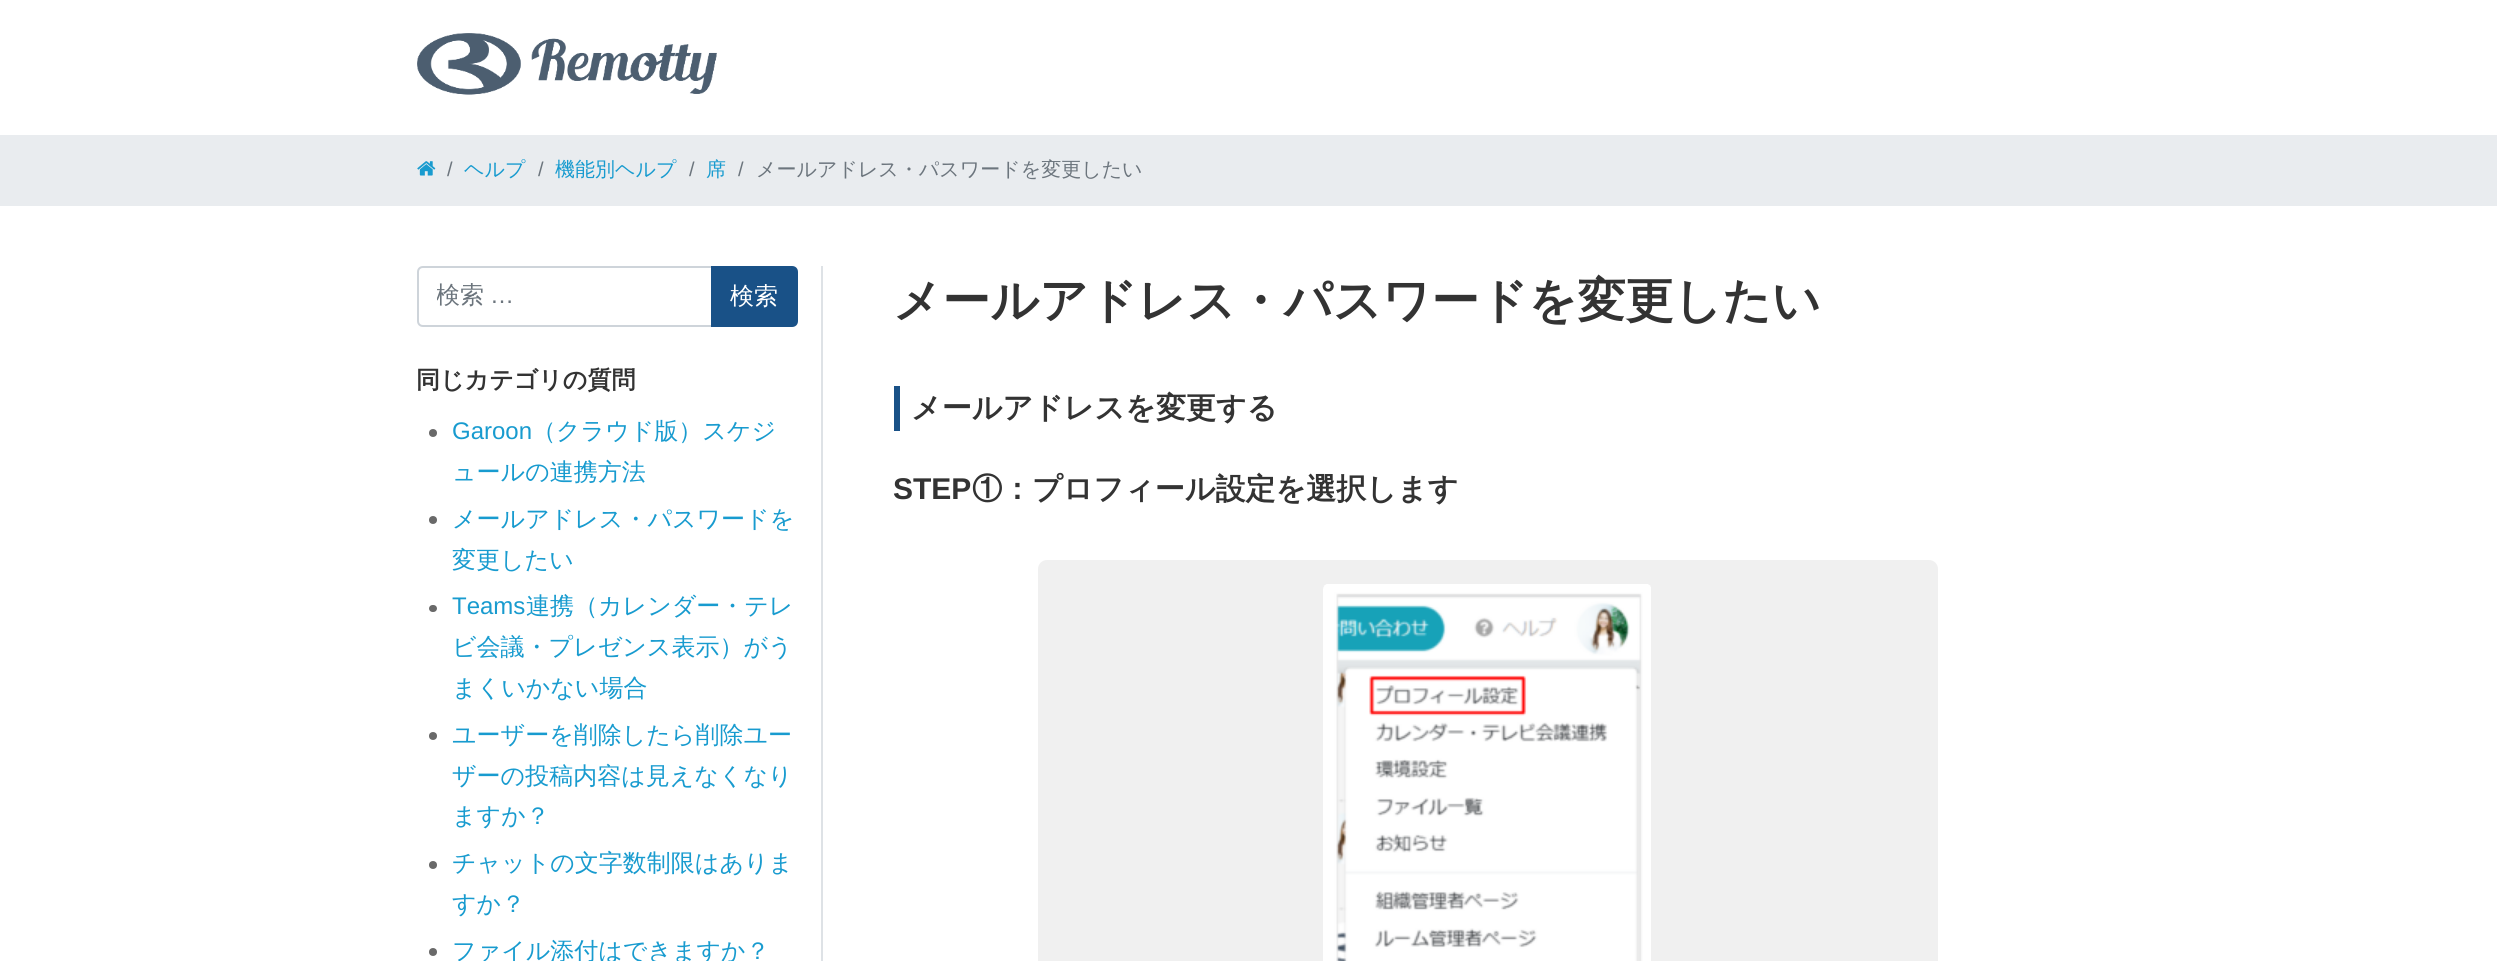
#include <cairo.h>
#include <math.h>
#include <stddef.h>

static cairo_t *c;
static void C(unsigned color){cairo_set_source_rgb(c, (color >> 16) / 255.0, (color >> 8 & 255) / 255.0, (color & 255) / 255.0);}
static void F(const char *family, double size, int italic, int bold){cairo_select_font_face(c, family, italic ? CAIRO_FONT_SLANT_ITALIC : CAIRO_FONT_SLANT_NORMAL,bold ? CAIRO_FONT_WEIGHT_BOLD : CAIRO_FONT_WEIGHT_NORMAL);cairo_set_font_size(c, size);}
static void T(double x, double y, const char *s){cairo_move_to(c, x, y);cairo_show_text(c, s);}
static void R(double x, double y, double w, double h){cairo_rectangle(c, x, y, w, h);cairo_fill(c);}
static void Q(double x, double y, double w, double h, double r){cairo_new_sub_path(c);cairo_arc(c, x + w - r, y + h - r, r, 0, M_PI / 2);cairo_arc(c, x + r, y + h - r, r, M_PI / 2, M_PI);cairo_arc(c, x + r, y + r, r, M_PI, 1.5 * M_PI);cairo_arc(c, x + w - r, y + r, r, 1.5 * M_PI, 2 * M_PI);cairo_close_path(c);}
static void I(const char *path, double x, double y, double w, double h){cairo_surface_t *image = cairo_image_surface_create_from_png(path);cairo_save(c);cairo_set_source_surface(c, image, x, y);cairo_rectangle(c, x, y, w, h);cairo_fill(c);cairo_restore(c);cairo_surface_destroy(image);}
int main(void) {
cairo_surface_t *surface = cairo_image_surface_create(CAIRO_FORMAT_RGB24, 2497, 961);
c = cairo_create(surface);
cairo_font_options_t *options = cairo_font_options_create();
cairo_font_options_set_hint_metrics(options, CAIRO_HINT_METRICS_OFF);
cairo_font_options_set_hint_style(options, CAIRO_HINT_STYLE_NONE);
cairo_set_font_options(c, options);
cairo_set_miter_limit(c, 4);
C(0xffffff);
cairo_paint(c);
I("1.png",417,33,300,62);
C(0xe9ecef);
R(0,135,2497,71);
I("2.png",417,161,19,15);
F("Liberation Sans",20,0,0);
C(0x6c757d);
T(447,176,"/");
F("WenQuanYi Zen Hei Medium",20,0,0);
C(0x189bcf);
T(464,176,"ヘルプ");
F("Liberation Sans",20,0,0);
C(0x6c757d);
T(538,176,"/");
F("WenQuanYi Zen Hei Medium",20,0,0);
C(0x189bcf);
T(555,176,"機能別ヘルプ");
F("Liberation Sans",20,0,0);
C(0x6c757d);
T(689,176,"/");
F("WenQuanYi Zen Hei Medium",20,0,0);
C(0x189bcf);
T(706,176,"席");
F("Liberation Sans",20,0,0);
C(0x6c757d);
T(738,176,"/");
F("WenQuanYi Zen Hei Medium",20,0,0);
T(756,176,"メールアドレス・パスワードを変更したい");
C(0xdee2e6);
R(821,266,2,695);
cairo_new_path(c);
cairo_move_to(c,423,267);
cairo_line_to(c,712,267);
cairo_line_to(c,712,326);
cairo_line_to(c,423,326);
cairo_curve_to(c,420,326,418,324,418,321);
cairo_line_to(c,418,272);
cairo_curve_to(c,418,269,420,267,423,267);
cairo_close_path(c);
C(0xced4da);
cairo_stroke(c);
cairo_save(c);
cairo_rectangle(c,437,281,256,31);
cairo_clip(c);
F("WenQuanYi Zen Hei Medium",24,0,0);
C(0x6c757d);
T(436,303,"検索");
cairo_restore(c);
F("Liberation Sans",24,0,0);
C(0x6c757d);
T(490,303,"…");
C(0x195187);
cairo_new_path(c);
cairo_move_to(c,712,267);
cairo_line_to(c,792,267);
cairo_curve_to(c,795,267,797,269,797,272);
cairo_line_to(c,797,321);
cairo_curve_to(c,797,324,795,326,792,326);
cairo_line_to(c,712,326);
cairo_close_path(c);
cairo_fill_preserve(c);
cairo_stroke(c);
F("WenQuanYi Zen Hei Medium",24,0,0);
C(0xffffff);
T(730,304,"検索");
F("WenQuanYi Zen Hei",24,0,1);
C(0x333333);
T(416,388,"同じカテゴリの質問");
C(0x696969);
cairo_new_path(c);
cairo_arc(c,433,433,4,0,2 * M_PI);
cairo_fill(c);
F("Liberation Sans",24,0,0);
C(0x189bcf);
T(452,439,"Garoon");
F("WenQuanYi Zen Hei Medium",24,0,0);
T(532,439,"（クラウド版）スケジ");
T(452,480,"ュールの連携方法");
C(0x696969);
cairo_new_path(c);
cairo_arc(c,433,520,4,0,2 * M_PI);
cairo_fill(c);
C(0x189bcf);
T(452,527,"メールアドレス・パスワードを");
T(452,568,"変更したい");
C(0x696969);
Q(429,605,8,7,3.5);
cairo_fill(c);
F("Liberation Sans",24,0,0);
C(0x189bcf);
T(452,614,"Teams");
F("WenQuanYi Zen Hei Medium",24,0,0);
T(526,614,"連携（カレンダー・テレ");
T(452,655,"ビ会議・プレゼンス表示）がう");
T(452,696,"まくいかない場合");
C(0x696969);
cairo_new_path(c);
cairo_arc(c,433,736,4,0,2 * M_PI);
cairo_fill(c);
C(0x189bcf);
T(452,743,"ユーザーを削除したら削除ユー");
T(452,784,"ザーの投稿内容は見えなくなり");
T(452,824,"ますか？");
C(0x696969);
cairo_new_path(c);
cairo_arc(c,433,865,4,0,2 * M_PI);
cairo_fill(c);
C(0x189bcf);
T(452,871,"チャットの文字数制限はありま");
T(452,912,"すか？");
C(0x696969);
cairo_new_path(c);
cairo_arc(c,433,952,4,0,2 * M_PI);
cairo_fill(c);
C(0x189bcf);
T(452,959,"ファイル添付はできますか？");
F("WenQuanYi Zen Hei",48,0,1);
C(0x333333);
T(893,317,"メールアドレス・パスワードを変更したい");
C(0x195187);
R(894,386,6,45);
F("WenQuanYi Zen Hei",30,0,1);
C(0x333333);
T(911,418,"メールアドレスを変更する");
F("Liberation Sans",30,0,1);
T(893,499,"STEP");
F("WenQuanYi Zen Hei",30,0,1);
T(972,499,"①：プロフィール設定を選択します");
C(0xf0f0f0);
Q(1038,560,900,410,9);
cairo_fill(c);
I("3.png",1323,584,328,377);
cairo_surface_write_to_png(surface, "o.png");
cairo_font_options_destroy(options);
cairo_destroy(c);
cairo_surface_destroy(surface);
return 0;
}
